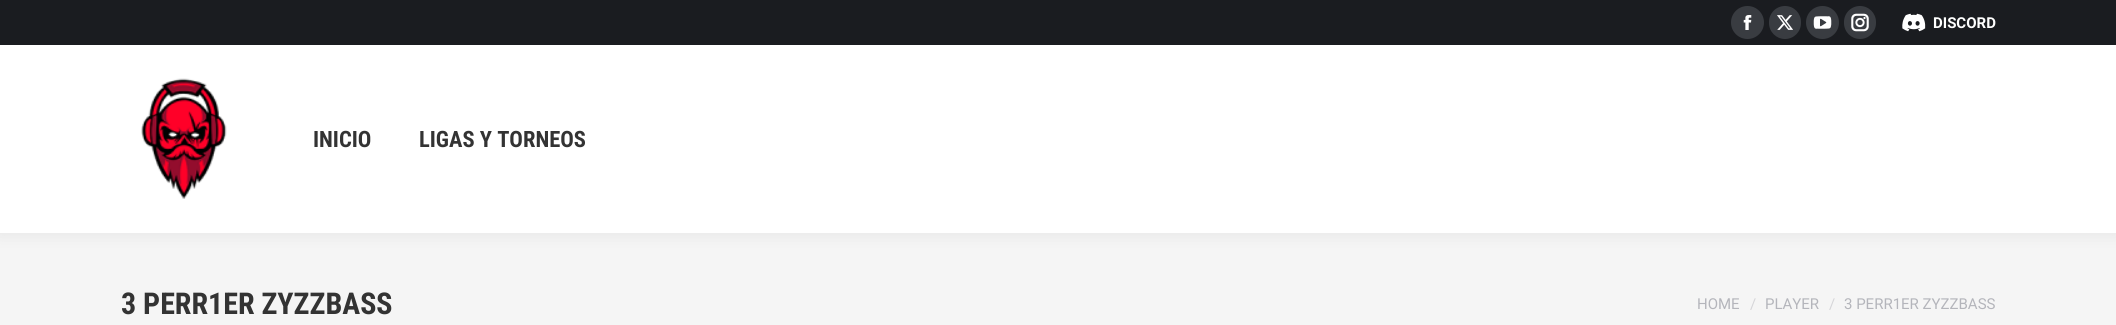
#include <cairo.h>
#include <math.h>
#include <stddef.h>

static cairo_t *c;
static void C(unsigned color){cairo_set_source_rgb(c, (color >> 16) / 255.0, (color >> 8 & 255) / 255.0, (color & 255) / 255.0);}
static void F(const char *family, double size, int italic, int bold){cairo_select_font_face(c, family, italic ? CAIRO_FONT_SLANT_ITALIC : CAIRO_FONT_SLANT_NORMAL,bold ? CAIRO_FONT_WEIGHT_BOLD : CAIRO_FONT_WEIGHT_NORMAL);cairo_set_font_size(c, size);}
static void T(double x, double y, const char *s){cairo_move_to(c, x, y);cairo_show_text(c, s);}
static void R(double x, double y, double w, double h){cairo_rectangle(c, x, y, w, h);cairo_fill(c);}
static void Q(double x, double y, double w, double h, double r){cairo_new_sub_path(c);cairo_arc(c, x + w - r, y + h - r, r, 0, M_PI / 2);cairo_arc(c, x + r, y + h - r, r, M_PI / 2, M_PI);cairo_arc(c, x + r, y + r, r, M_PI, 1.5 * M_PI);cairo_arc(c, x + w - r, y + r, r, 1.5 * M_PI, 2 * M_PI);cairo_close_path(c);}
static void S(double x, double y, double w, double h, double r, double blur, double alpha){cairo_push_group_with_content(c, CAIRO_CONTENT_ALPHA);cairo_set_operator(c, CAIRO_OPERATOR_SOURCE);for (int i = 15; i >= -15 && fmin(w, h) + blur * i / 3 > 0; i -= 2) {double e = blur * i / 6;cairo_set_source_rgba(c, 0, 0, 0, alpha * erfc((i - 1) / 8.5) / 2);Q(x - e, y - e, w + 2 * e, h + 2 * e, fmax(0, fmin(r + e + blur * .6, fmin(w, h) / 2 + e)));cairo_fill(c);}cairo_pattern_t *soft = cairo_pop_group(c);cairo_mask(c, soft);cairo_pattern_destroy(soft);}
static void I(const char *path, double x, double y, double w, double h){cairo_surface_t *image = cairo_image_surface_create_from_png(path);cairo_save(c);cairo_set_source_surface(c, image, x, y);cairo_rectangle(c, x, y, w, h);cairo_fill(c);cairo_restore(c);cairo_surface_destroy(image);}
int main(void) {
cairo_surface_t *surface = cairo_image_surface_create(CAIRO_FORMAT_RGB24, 2116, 325);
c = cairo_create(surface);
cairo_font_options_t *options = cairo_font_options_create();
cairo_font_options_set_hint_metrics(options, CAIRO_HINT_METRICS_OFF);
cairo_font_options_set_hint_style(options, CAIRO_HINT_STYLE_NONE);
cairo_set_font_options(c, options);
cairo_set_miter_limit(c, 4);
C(0xf5f5f5);
cairo_paint(c);
C(0x000000);
S(-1,-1,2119,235,0,9.5,.07);
C(0xffffff);
R(0,45,2116,188);
C(0x1a1c20);
R(0,0,2116,45);
C(0x393c41);
cairo_arc(c,1747.5,22.5,16.5,0,2 * M_PI);
cairo_fill(c);
I("1.png",1743,15,9,15);
Q(1769,6,32,33,16);
cairo_fill(c);
I("2.png",1777,15,16,15);
cairo_arc(c,1822.5,22.5,16.5,0,2 * M_PI);
cairo_fill(c);
I("3.png",1813,16,19,13);
Q(1844,6,32,33,16);
cairo_fill(c);
I("4.png",1851,13,18,19);
I("5.png",1902,13,24,19);
F("Roboto",15,0,1);
C(0xffffff);
T(1933,28,"DISCORD");
I("6.png",141,78,86,121);
F("Roboto Condensed",22.5,0,1);
C(0x333333);
T(313,147,"INICIO");
T(419,147,"LIGAS Y TORNEOS");
F("Roboto Condensed",30,0,1);
T(121,314,"3 PERR1ER ZYZZBASS");
F("Roboto",15,0,0);
C(0xb4b5bb);
T(1697,309,"HOME");
C(0xd5d5d8);
T(1750,309,"/");
C(0xb4b5bb);
T(1765,309,"PLAYER");
C(0xd5d5d8);
T(1829,309,"/");
C(0xb4b5bb);
T(1844,309,"3 PERR1ER ZYZZBASS");
cairo_surface_write_to_png(surface, "o.png");
cairo_font_options_destroy(options);
cairo_destroy(c);
cairo_surface_destroy(surface);
return 0;
}
